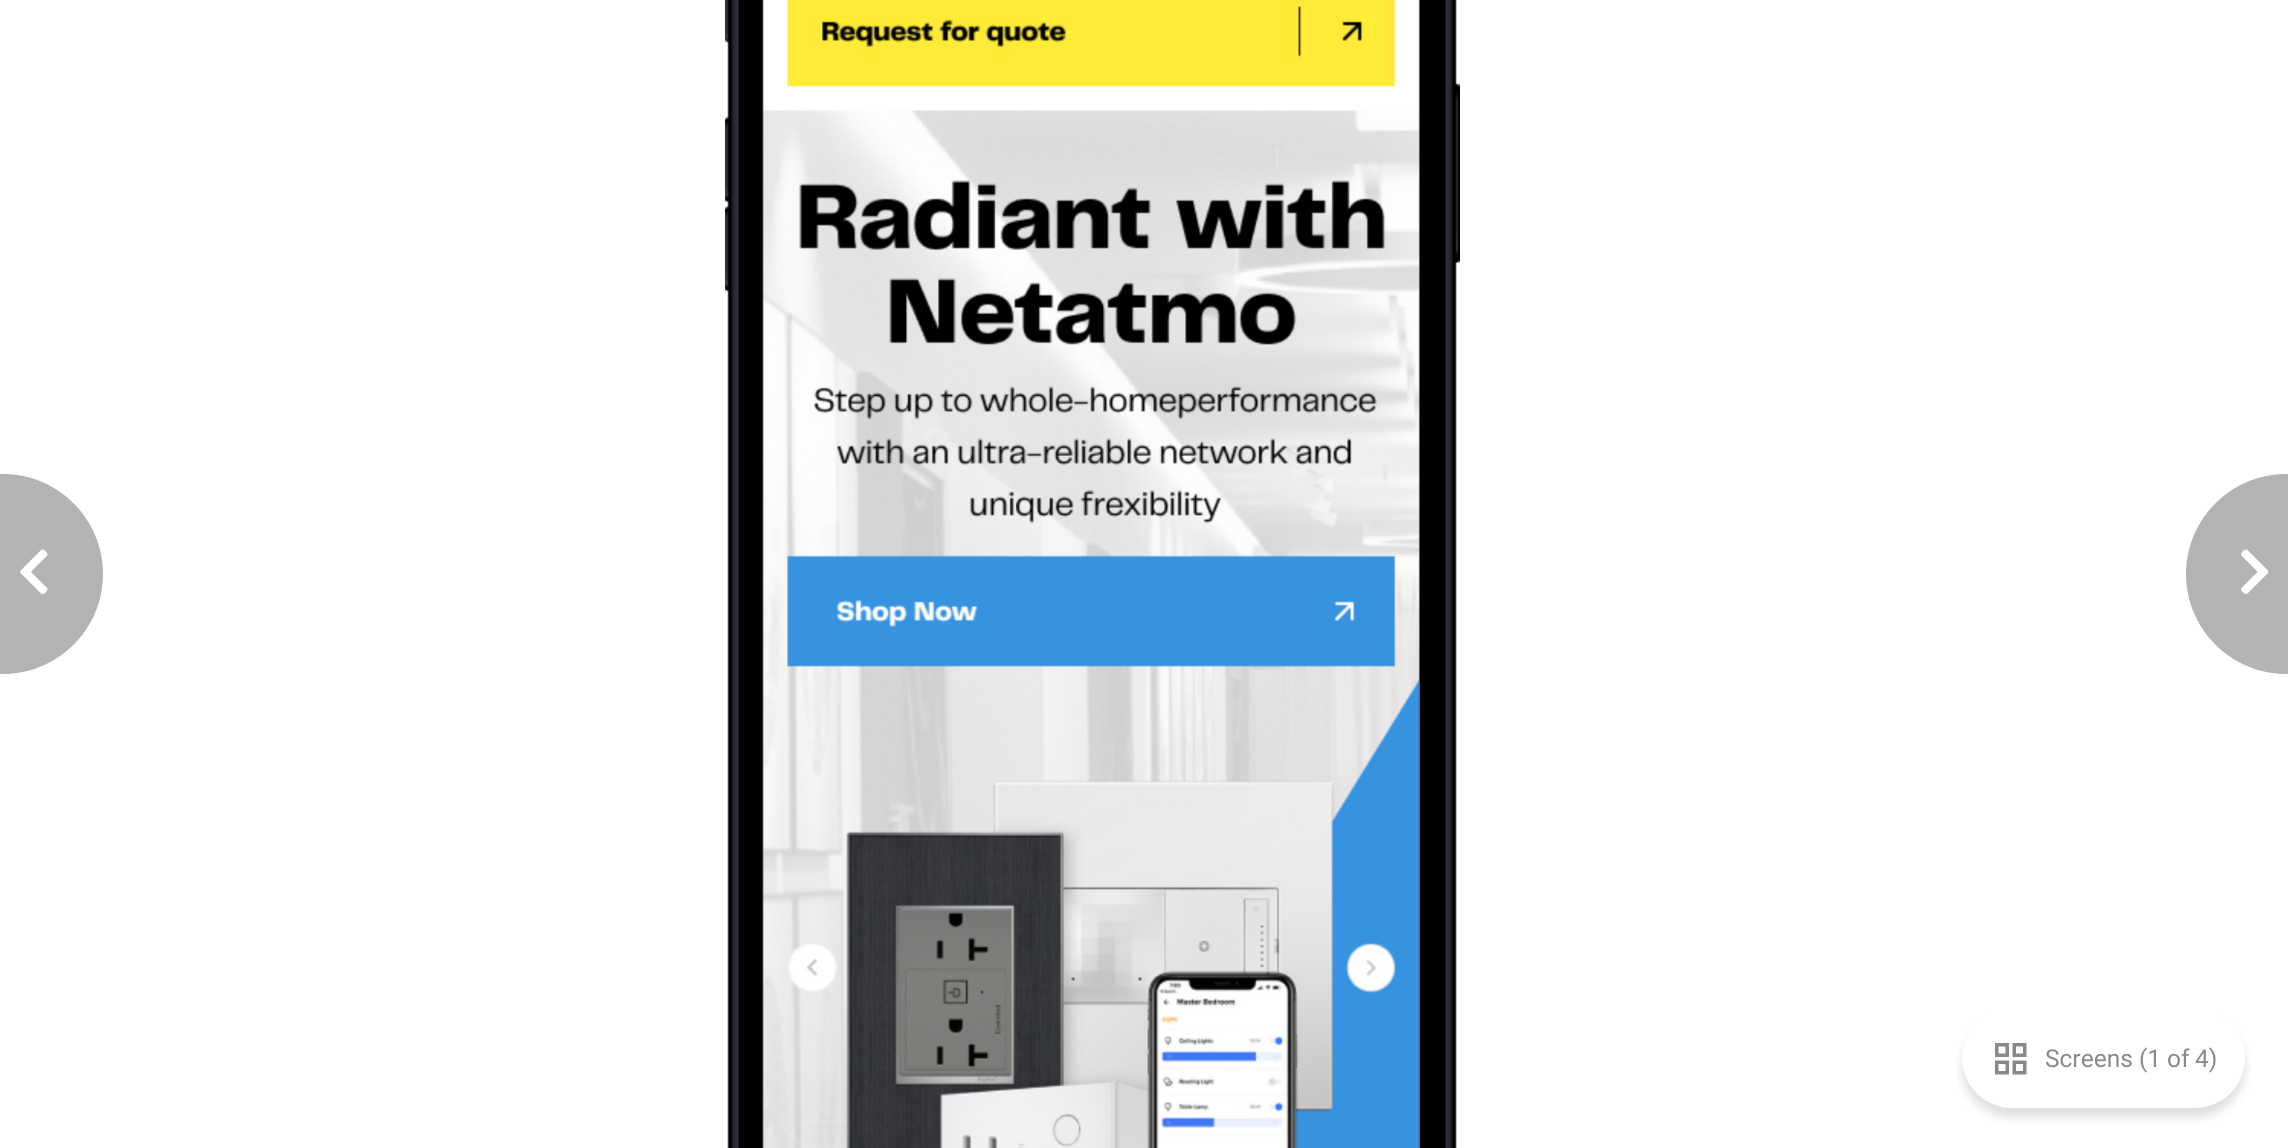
#include <cairo.h>
#include <math.h>
#include <stddef.h>

static cairo_t *c;
static void C(unsigned color){cairo_set_source_rgb(c, (color >> 16) / 255.0, (color >> 8 & 255) / 255.0, (color & 255) / 255.0);}
static void F(const char *family, double size, int italic, int bold){cairo_select_font_face(c, family, italic ? CAIRO_FONT_SLANT_ITALIC : CAIRO_FONT_SLANT_NORMAL,bold ? CAIRO_FONT_WEIGHT_BOLD : CAIRO_FONT_WEIGHT_NORMAL);cairo_set_font_size(c, size);}
static void T(double x, double y, const char *s){cairo_move_to(c, x, y);cairo_show_text(c, s);}
static void Q(double x, double y, double w, double h, double r){cairo_new_sub_path(c);cairo_arc(c, x + w - r, y + h - r, r, 0, M_PI / 2);cairo_arc(c, x + r, y + h - r, r, M_PI / 2, M_PI);cairo_arc(c, x + r, y + r, r, M_PI, 1.5 * M_PI);cairo_arc(c, x + w - r, y + r, r, 1.5 * M_PI, 2 * M_PI);cairo_close_path(c);}
static void S(double x, double y, double w, double h, double r, double blur, double alpha){cairo_push_group_with_content(c, CAIRO_CONTENT_ALPHA);cairo_set_operator(c, CAIRO_OPERATOR_SOURCE);for (int i = 15; i >= -15 && fmin(w, h) + blur * i / 3 > 0; i -= 2) {double e = blur * i / 6;cairo_set_source_rgba(c, 0, 0, 0, alpha * erfc((i - 1) / 8.5) / 2);Q(x - e, y - e, w + 2 * e, h + 2 * e, fmax(0, fmin(r + e + blur * .6, fmin(w, h) / 2 + e)));cairo_fill(c);}cairo_pattern_t *soft = cairo_pop_group(c);cairo_mask(c, soft);cairo_pattern_destroy(soft);}
static void I(const char *path, double x, double y, double w, double h){cairo_surface_t *image = cairo_image_surface_create_from_png(path);cairo_save(c);cairo_set_source_surface(c, image, x, y);cairo_rectangle(c, x, y, w, h);cairo_fill(c);cairo_restore(c);cairo_surface_destroy(image);}
int main(void) {
cairo_surface_t *surface = cairo_image_surface_create(CAIRO_FORMAT_RGB24, 2288, 1148);
c = cairo_create(surface);
cairo_font_options_t *options = cairo_font_options_create();
cairo_font_options_set_hint_metrics(options, CAIRO_HINT_METRICS_OFF);
cairo_font_options_set_hint_style(options, CAIRO_HINT_STYLE_NONE);
cairo_set_font_options(c, options);
cairo_set_miter_limit(c, 4);
C(0xffffff);
cairo_paint(c);
C(0xb3b3b3);
cairo_new_path(c);
cairo_move_to(c,-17,474);
cairo_line_to(c,3,474);
cairo_curve_to(c,58,474,103,519,103,574);
cairo_curve_to(c,103,629,58,674,3,674);
cairo_line_to(c,-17,674);
cairo_close_path(c);
cairo_fill(c);
I("1.png",20,549,28,46);
I("2.png",763,0,656,1148);
cairo_new_path(c);
cairo_move_to(c,2286,474);
cairo_line_to(c,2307,474);
cairo_line_to(c,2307,674);
cairo_line_to(c,2286,674);
cairo_curve_to(c,2231,674,2186,629,2186,574);
cairo_curve_to(c,2186,519,2231,474,2286,474);
cairo_close_path(c);
cairo_fill(c);
I("3.png",2241,549,28,46);
I("4.png",725,0,735,1148);
C(0x000000);
S(1962,1017,283,100,50,4.5,.13);
C(0xffffff);
Q(1962,1008,283,100,50);
cairo_fill(c);
I("5.png",1995,1043,32,32);
F("Roboto",24.5,0,0);
C(0x898989);
T(2045,1067,"Screens (1");
T(2167,1067,"of");
T(2195,1067,"4)");
cairo_surface_write_to_png(surface, "o.png");
cairo_font_options_destroy(options);
cairo_destroy(c);
cairo_surface_destroy(surface);
return 0;
}
